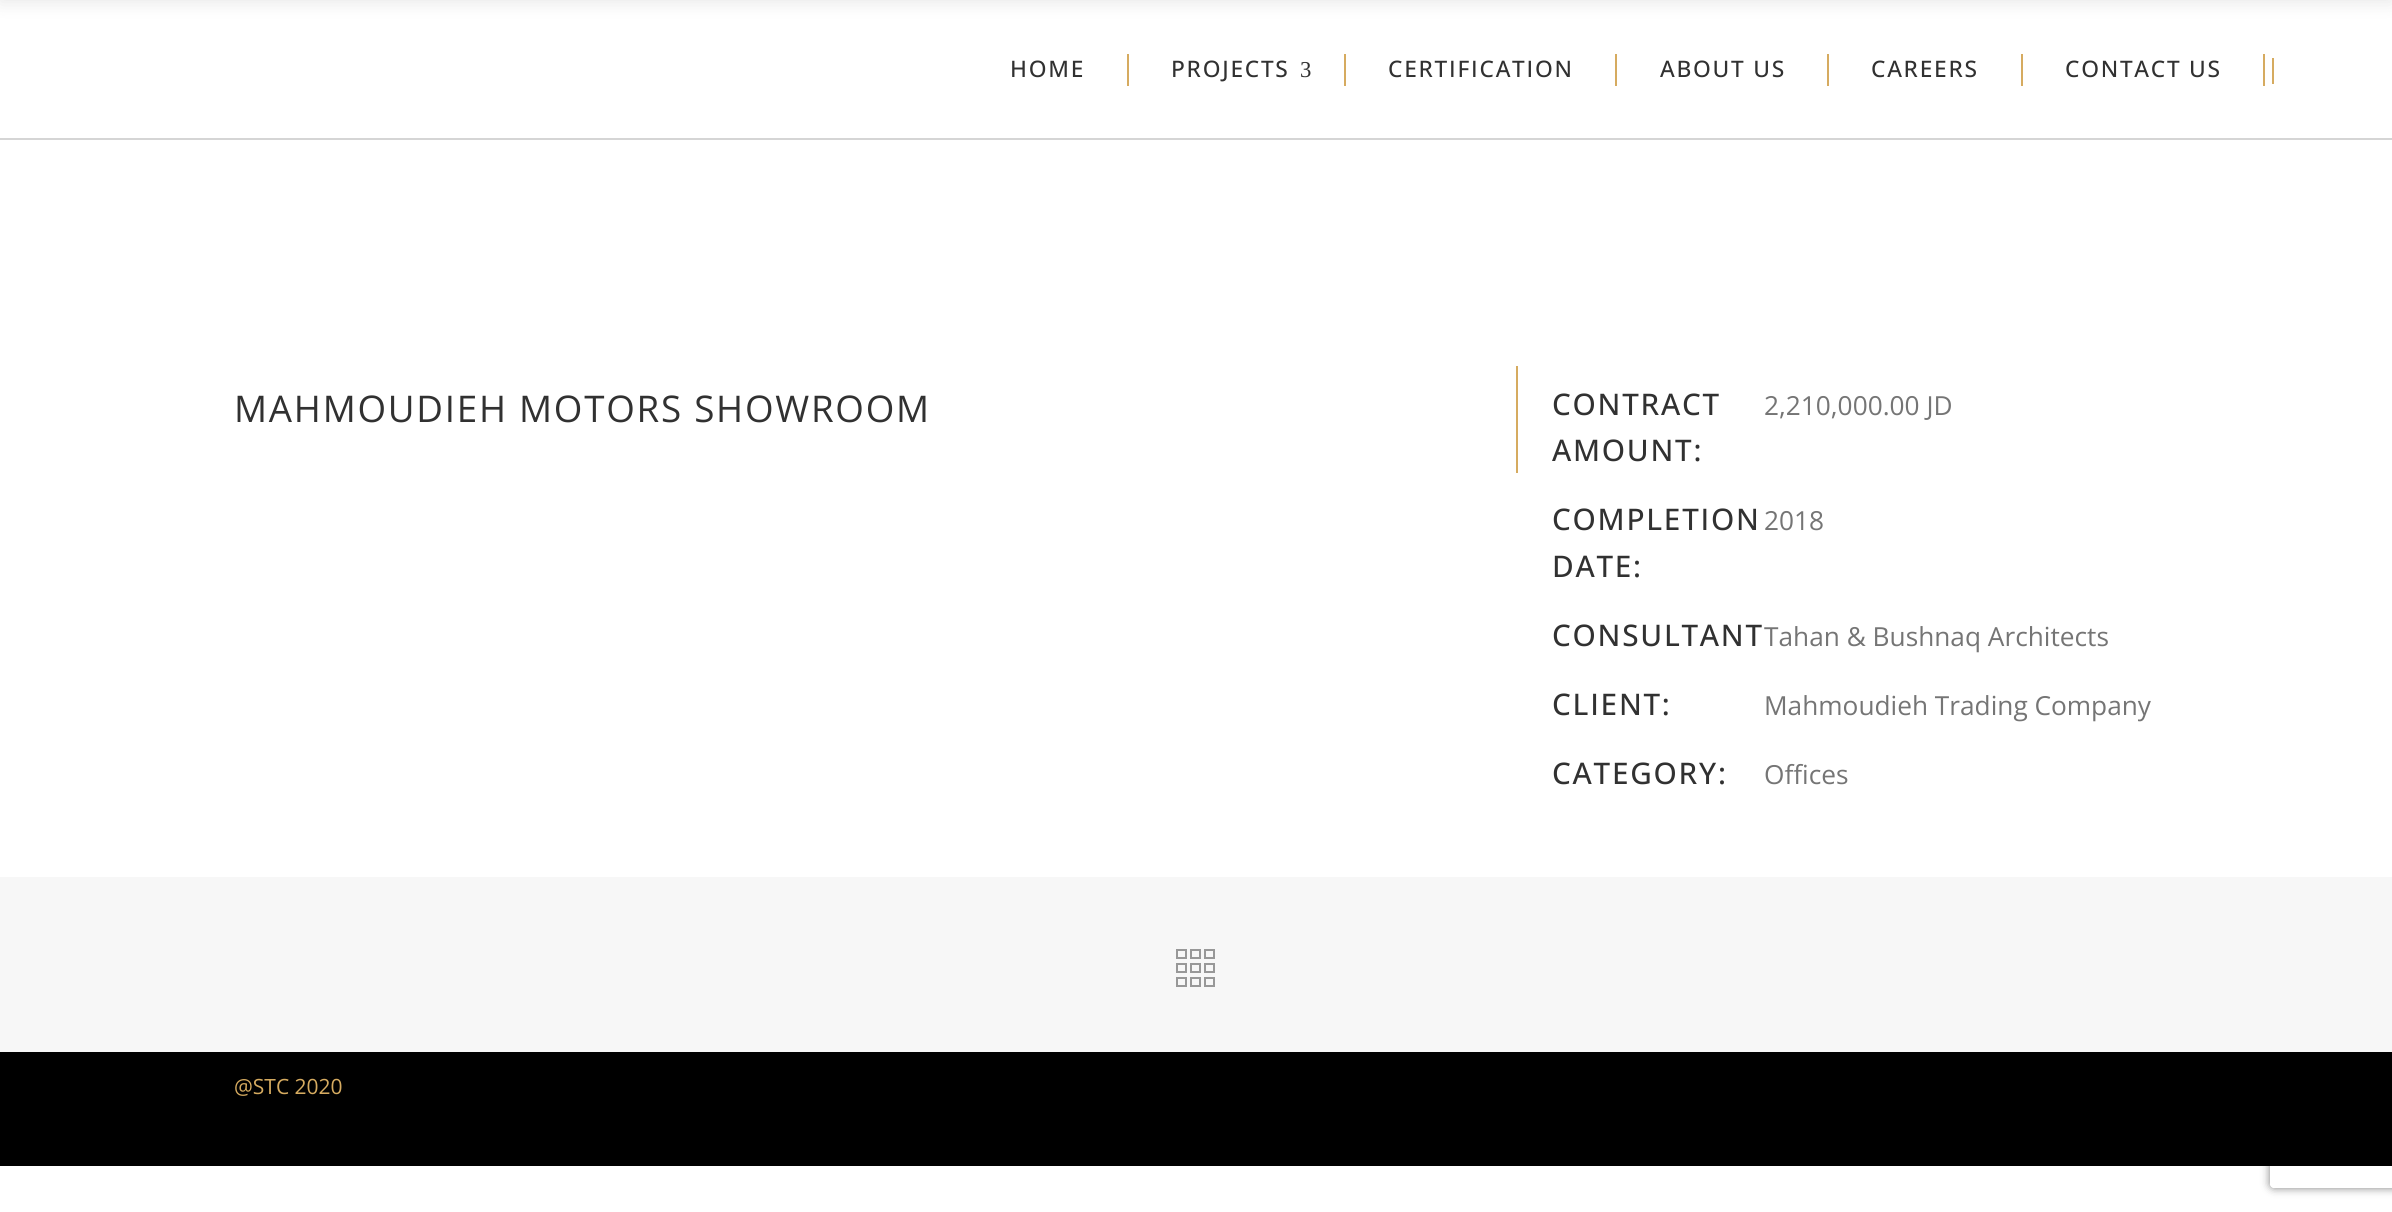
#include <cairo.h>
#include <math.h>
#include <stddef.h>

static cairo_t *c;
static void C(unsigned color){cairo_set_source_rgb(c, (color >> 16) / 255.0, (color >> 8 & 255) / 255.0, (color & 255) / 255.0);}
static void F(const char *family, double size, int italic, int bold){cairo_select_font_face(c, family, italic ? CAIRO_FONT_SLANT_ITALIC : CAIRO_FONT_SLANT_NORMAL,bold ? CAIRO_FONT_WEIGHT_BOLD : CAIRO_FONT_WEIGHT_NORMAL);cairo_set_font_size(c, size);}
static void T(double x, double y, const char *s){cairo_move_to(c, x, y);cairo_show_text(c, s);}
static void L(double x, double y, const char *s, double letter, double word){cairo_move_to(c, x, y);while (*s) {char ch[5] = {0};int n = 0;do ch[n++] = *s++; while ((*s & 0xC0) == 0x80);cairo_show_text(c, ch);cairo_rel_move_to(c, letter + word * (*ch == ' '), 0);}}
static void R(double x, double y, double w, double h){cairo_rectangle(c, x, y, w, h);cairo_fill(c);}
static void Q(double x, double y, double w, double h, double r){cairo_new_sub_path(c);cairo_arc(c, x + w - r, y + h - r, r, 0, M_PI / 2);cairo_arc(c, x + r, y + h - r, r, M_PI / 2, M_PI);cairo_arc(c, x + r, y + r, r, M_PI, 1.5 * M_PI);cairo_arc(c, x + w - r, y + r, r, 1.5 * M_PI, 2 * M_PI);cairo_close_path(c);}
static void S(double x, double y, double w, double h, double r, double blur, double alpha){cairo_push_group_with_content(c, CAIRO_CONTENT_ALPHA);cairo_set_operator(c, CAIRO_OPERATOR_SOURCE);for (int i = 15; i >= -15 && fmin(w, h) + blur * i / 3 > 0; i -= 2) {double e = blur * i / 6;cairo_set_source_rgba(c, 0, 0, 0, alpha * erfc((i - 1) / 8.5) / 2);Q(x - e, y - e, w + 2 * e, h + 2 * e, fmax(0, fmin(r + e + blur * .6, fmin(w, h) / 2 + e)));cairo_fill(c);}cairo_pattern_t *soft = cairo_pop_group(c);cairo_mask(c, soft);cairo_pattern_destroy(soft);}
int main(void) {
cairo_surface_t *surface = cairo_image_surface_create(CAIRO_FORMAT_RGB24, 2392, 1212);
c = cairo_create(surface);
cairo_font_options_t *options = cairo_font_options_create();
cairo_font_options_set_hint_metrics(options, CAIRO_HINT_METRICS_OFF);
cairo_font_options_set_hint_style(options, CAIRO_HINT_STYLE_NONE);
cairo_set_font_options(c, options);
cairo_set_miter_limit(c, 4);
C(0xffffff);
cairo_paint(c);
C(0x000000);
S(0,-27,2392,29,0,9,.1);
C(0xd5d5d5);
R(0,138,2392,2);
F("Open Sans Medium",22.75,0,0);
C(0x313131);
L(1010,77,"HOME",1.75,0);
C(0xd6ab60);
R(1127,54,2,32);
C(0x313131);
L(1171,77,"PROJECTS",1.75,0);
F("Liberation Serif",22.75,0,0);
L(1300,77,"3",1.75,0);
C(0xd6ab60);
R(1344,54,2,32);
F("Open Sans Medium",22.75,0,0);
C(0x313131);
L(1388,77,"CERTIFICATION",1.75,0);
C(0xd6ab60);
R(1615,54,2,32);
C(0x313131);
L(1660,77,"ABOUT US",1.75,0);
C(0xd6ab60);
R(1827,54,2,32);
C(0x313131);
L(1871,77,"CAREERS",1.75,0);
C(0xd6ab60);
R(2021,54,2,32);
C(0x313131);
L(2065,77,"CONTACT US",1.75,0);
C(0xd6ab60);
R(2263,54,2,32);
R(2272,58,2,26);
R(1516,366,2,107);
F("Open Sans",36.75,0,0);
C(0x313131);
L(234,422,"MAHMOUDIEH MOTORS SHOWROOM",1.75,0);
F("Open Sans Medium",29.75,0,0);
L(1552,415,"CONTRACT",1.75,0);
L(1552,461,"AMOUNT:",1.75,0);
F("Open Sans",26.25,0,0);
C(0x757575);
T(1764,415,"2,210,000.00 JD");
F("Open Sans Medium",29.75,0,0);
C(0x313131);
L(1552,530,"COMPLETION",1.75,0);
L(1552,577,"DATE:",1.75,0);
F("Open Sans",26.25,0,0);
C(0x757575);
T(1764,530,"2018");
F("Open Sans Medium",29.75,0,0);
C(0x313131);
L(1552,646,"CONSULTANT",1.75,0);
F("Open Sans",26.25,0,0);
C(0x757575);
T(1764,646,"Tahan & Bushnaq Architects");
F("Open Sans Medium",29.75,0,0);
C(0x313131);
L(1552,715,"CLIENT:",1.75,0);
F("Open Sans",26.25,0,0);
C(0x757575);
T(1764,715,"Mahmoudieh Trading Company");
F("Open Sans Medium",29.75,0,0);
C(0x313131);
L(1552,784,"CATEGORY:",1.75,0);
F("Open Sans",26.25,0,0);
C(0x757575);
T(1764,784,"Offices");
C(0xf7f7f7);
R(0,877,2392,175);
cairo_rectangle(c,1177,950,9,8);
C(0x989898);
cairo_stroke(c);
cairo_rectangle(c,1191,950,9,8);
cairo_stroke(c);
cairo_rectangle(c,1205,950,9,8);
cairo_stroke(c);
cairo_rectangle(c,1177,964,9,8);
cairo_stroke(c);
cairo_rectangle(c,1191,964,9,8);
cairo_stroke(c);
cairo_rectangle(c,1205,964,9,8);
cairo_stroke(c);
cairo_rectangle(c,1177,978,9,8);
cairo_stroke(c);
cairo_rectangle(c,1191,978,9,8);
cairo_stroke(c);
cairo_rectangle(c,1205,978,9,8);
cairo_stroke(c);
cairo_save(c);
cairo_set_fill_rule(c,CAIRO_FILL_RULE_EVEN_ODD);
cairo_new_path(c);
cairo_move_to(c,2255,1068);
cairo_line_to(c,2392,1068);
cairo_line_to(c,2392,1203);
cairo_line_to(c,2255,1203);
cairo_close_path(c);
cairo_move_to(c,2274,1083);
cairo_line_to(c,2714,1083);
cairo_curve_to(c,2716,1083,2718,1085,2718,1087);
cairo_line_to(c,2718,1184);
cairo_curve_to(c,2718,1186,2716,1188,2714,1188);
cairo_line_to(c,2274,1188);
cairo_curve_to(c,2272,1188,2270,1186,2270,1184);
cairo_line_to(c,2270,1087);
cairo_curve_to(c,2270,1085,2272,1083,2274,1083);
cairo_close_path(c);
cairo_clip(c);
C(0x808080);
S(2270,1083,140,105,4,4.5,1);
cairo_restore(c);
C(0x000000);
R(0,1052,2392,114);
F("Open Sans",21,0,0);
C(0xd6ab60);
T(234,1094,"@STC 2020");
cairo_surface_write_to_png(surface, "o.png");
cairo_font_options_destroy(options);
cairo_destroy(c);
cairo_surface_destroy(surface);
return 0;
}
